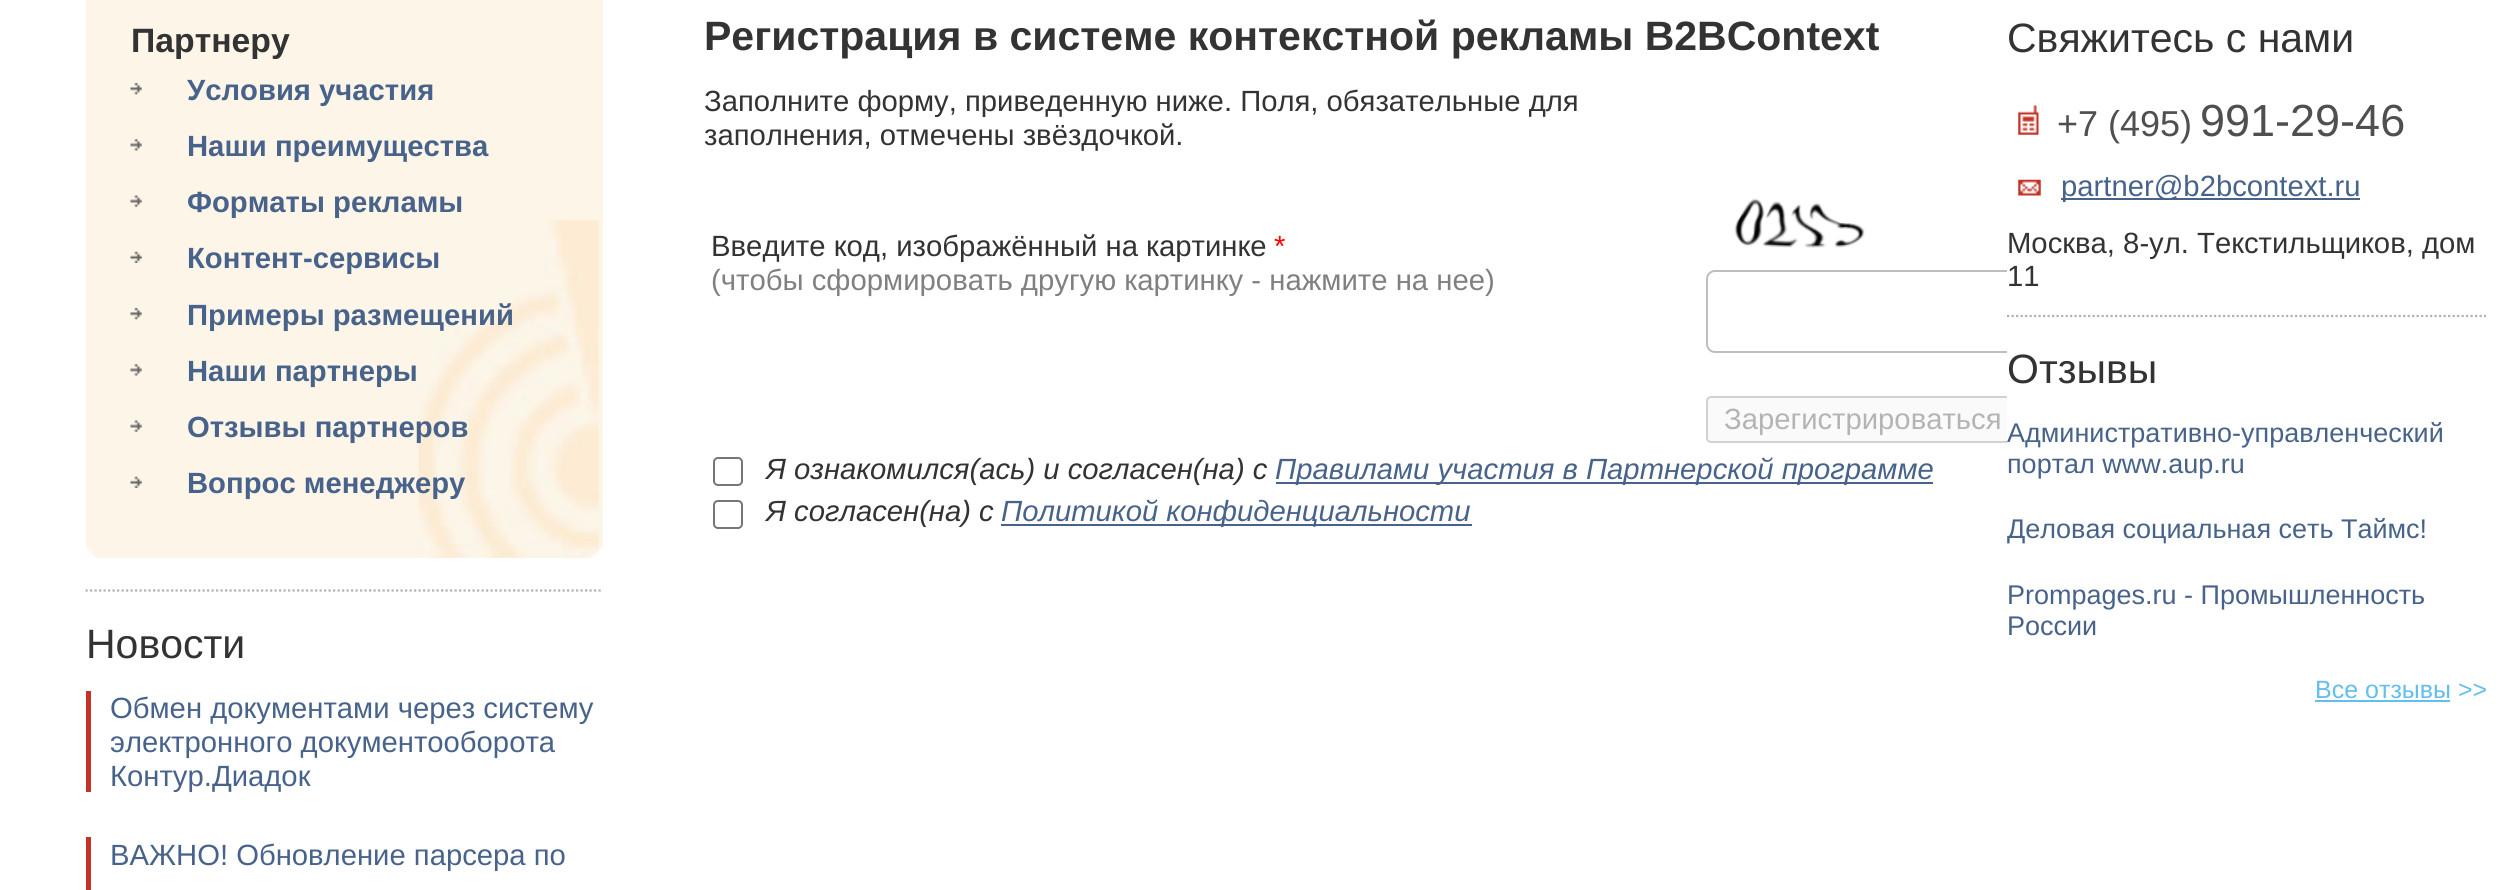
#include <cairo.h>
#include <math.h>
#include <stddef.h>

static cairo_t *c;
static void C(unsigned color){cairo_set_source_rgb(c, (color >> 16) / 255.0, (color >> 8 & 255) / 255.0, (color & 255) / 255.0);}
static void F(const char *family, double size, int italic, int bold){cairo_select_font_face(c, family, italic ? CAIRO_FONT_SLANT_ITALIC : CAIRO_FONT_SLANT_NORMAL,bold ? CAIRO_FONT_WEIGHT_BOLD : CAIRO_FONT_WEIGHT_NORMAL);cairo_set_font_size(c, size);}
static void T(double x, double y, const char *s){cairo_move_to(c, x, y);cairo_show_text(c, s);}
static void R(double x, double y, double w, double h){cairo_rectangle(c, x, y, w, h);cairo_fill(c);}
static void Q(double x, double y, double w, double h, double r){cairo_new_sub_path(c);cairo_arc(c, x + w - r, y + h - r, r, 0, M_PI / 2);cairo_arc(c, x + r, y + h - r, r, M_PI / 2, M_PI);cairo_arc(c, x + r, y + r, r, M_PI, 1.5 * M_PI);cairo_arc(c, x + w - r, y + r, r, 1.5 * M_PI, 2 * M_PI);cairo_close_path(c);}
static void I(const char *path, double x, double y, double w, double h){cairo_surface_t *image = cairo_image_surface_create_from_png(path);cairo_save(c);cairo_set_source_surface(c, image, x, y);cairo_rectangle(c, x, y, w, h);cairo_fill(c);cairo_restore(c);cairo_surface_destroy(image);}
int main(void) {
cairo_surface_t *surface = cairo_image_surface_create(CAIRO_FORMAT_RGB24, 2508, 890);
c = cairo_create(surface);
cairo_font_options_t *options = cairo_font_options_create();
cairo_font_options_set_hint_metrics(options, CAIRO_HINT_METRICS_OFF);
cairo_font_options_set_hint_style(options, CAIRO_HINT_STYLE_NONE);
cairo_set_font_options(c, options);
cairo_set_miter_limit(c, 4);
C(0xffffff);
cairo_paint(c);
C(0xfcf5e8);
R(86,0,517,558);
I("1.png",418,220,185,338);
I("2.png",592,546,11,12);
I("3.png",85,546,12,12);
F("Liberation Sans",33.75,0,1);
C(0x333333);
T(131,52,"Партнеру");
I("4.png",130,83,12,12);
F("Liberation Sans",29.25,0,1);
C(0x48638b);
T(187,100,"Условия участия");
I("5.png",130,139,12,12);
T(187,156,"Наши преимущества");
I("6.png",130,195,12,12);
T(187,212,"Форматы рекламы");
I("7.png",130,251,12,12);
T(187,268,"Контент-сервисы");
I("4.png",130,308,12,12);
T(187,325,"Примеры размещений");
I("5.png",130,364,12,12);
T(187,381,"Наши партнеры");
I("8.png",130,420,12,12);
T(187,437,"Отзывы партнеров");
I("7.png",130,476,12,12);
T(187,493,"Вопрос менеджеру");
cairo_new_path(c);
cairo_move_to(c,85.5,590.5);
cairo_line_to(c,603,590.5);
C(0xb2b2b2);
cairo_set_line_width(c,2.2);
cairo_set_dash(c,(double[]){2.25,2.25},2,0);
cairo_stroke(c);
F("Liberation Sans",41,0,0);
C(0x333333);
T(86,658,"Новости");
C(0xc43326);
R(86,691,5,101);
F("Liberation Sans",29.25,0,0);
C(0x48638b);
T(110,718,"Обмен документами через систему");
T(110,752,"электронного документооборота");
T(110,786,"Контур.Диадок");
C(0xc43326);
R(86,837,5,53);
C(0x48638b);
T(110,865,"ВАЖНО! Обновление парсера по");
F("Liberation Sans",41,0,1);
C(0x333333);
T(704,50,"Регистрация в системе контекстной рекламы B2BContext");
F("Liberation Sans",29.25,0,0);
T(704,111,"Заполните форму, приведенную ниже. Поля, обязательные для");
T(704,145,"заполнения, отмечены звёздочкой.");
F("Liberation Sans",29.3,0,0);
T(711,256,"Введите код, изображённый на картинке");
C(0xff0000);
T(1274,256,"*");
C(0x808080);
T(711,290,"(чтобы сформировать другую картинку - нажмите на нее)");
I("9.png",1734,198,131,51);
F("Liberation Sans",29.25,0,0);
C(0x333333);
T(2007,286,"11");
cairo_new_path(c);
cairo_move_to(c,2007,316);
cairo_line_to(c,2486,316);
C(0xb2b2b2);
cairo_stroke(c);
cairo_save(c);
cairo_rectangle(c,603,0,1404,637);
cairo_clip(c);
Q(1707,271,448,81,8);
C(0xbebebe);
cairo_set_line_width(c,2);
cairo_set_dash(c,NULL,0,0);
cairo_stroke(c);
cairo_restore(c);
C(0xfafafa);
cairo_new_path(c);
cairo_move_to(c,1711,396);
cairo_line_to(c,2007,396);
cairo_line_to(c,2007,443);
cairo_line_to(c,1711,443);
cairo_curve_to(c,1708,443,1706,441,1706,438);
cairo_line_to(c,1706,401);
cairo_curve_to(c,1706,398,1708,396,1711,396);
cairo_close_path(c);
cairo_fill(c);
F("Liberation Sans",27,0,0);
C(0x48638b);
T(2007,442,"Административно-управленческий");
cairo_save(c);
cairo_rectangle(c,603,0,1404,637);
cairo_clip(c);
Q(1707,397,313,45,4);
C(0xd2d2d2);
cairo_set_line_width(c,2);
cairo_set_dash(c,NULL,0,0);
cairo_stroke(c);
cairo_restore(c);
F("Liberation Sans",29.25,0,0);
C(0xb4b4b4);
T(1724,429,"Зарегистрироваться");
Q(714,458,28,27,4);
C(0x767676);
cairo_set_line_width(c,2);
cairo_set_dash(c,NULL,0,0);
cairo_stroke(c);
F("Liberation Sans",29.25,1,0);
C(0x333333);
T(766,479,"Я ознакомился(ась) и согласен(на) с");
C(0x48638b);
R(1276,482,657,2);
T(1275,479,"Правилами участия в Партнерской программе");
Q(714,501,28,27,4);
C(0x767676);
cairo_stroke(c);
C(0x333333);
T(766,521,"Я согласен(на) с");
C(0x48638b);
R(1001,524,471,2);
T(1001,521,"Политикой конфиденциальности");
F("Liberation Sans",41,0,0);
C(0x333333);
T(2007,52,"Свяжитесь с нами");
I("10.png",2018,105,21,30);
F("Liberation Sans",36,0,0);
C(0x4f4f4f);
T(2057,136,"+7 (495)");
F("Liberation Sans",45,0,0);
T(2200,136,"991-29-46");
I("11.png",2018,179,23,17);
C(0x48638b);
R(2061,198,299,2);
F("Liberation Sans",29.25,0,0);
T(2061,196,"partner@b2bcontext.ru");
C(0x333333);
T(2007,253,"Москва, 8-ул. Текстильщиков, дом");
F("Liberation Sans",41,0,0);
T(2007,383,"Отзывы");
F("Liberation Sans",27,0,0);
C(0x48638b);
T(2007,473,"портал www.aup.ru");
T(2007,538,"Деловая социальная сеть Таймс!");
T(2007,604,"Prompages.ru - Промышленность");
T(2007,635,"России");
F("Liberation Sans",25,0,0);
C(0x63beed);
T(2315,698,"Все отзывы >>");
R(2315,700,135,2);
cairo_surface_write_to_png(surface, "o.png");
cairo_font_options_destroy(options);
cairo_destroy(c);
cairo_surface_destroy(surface);
return 0;
}
